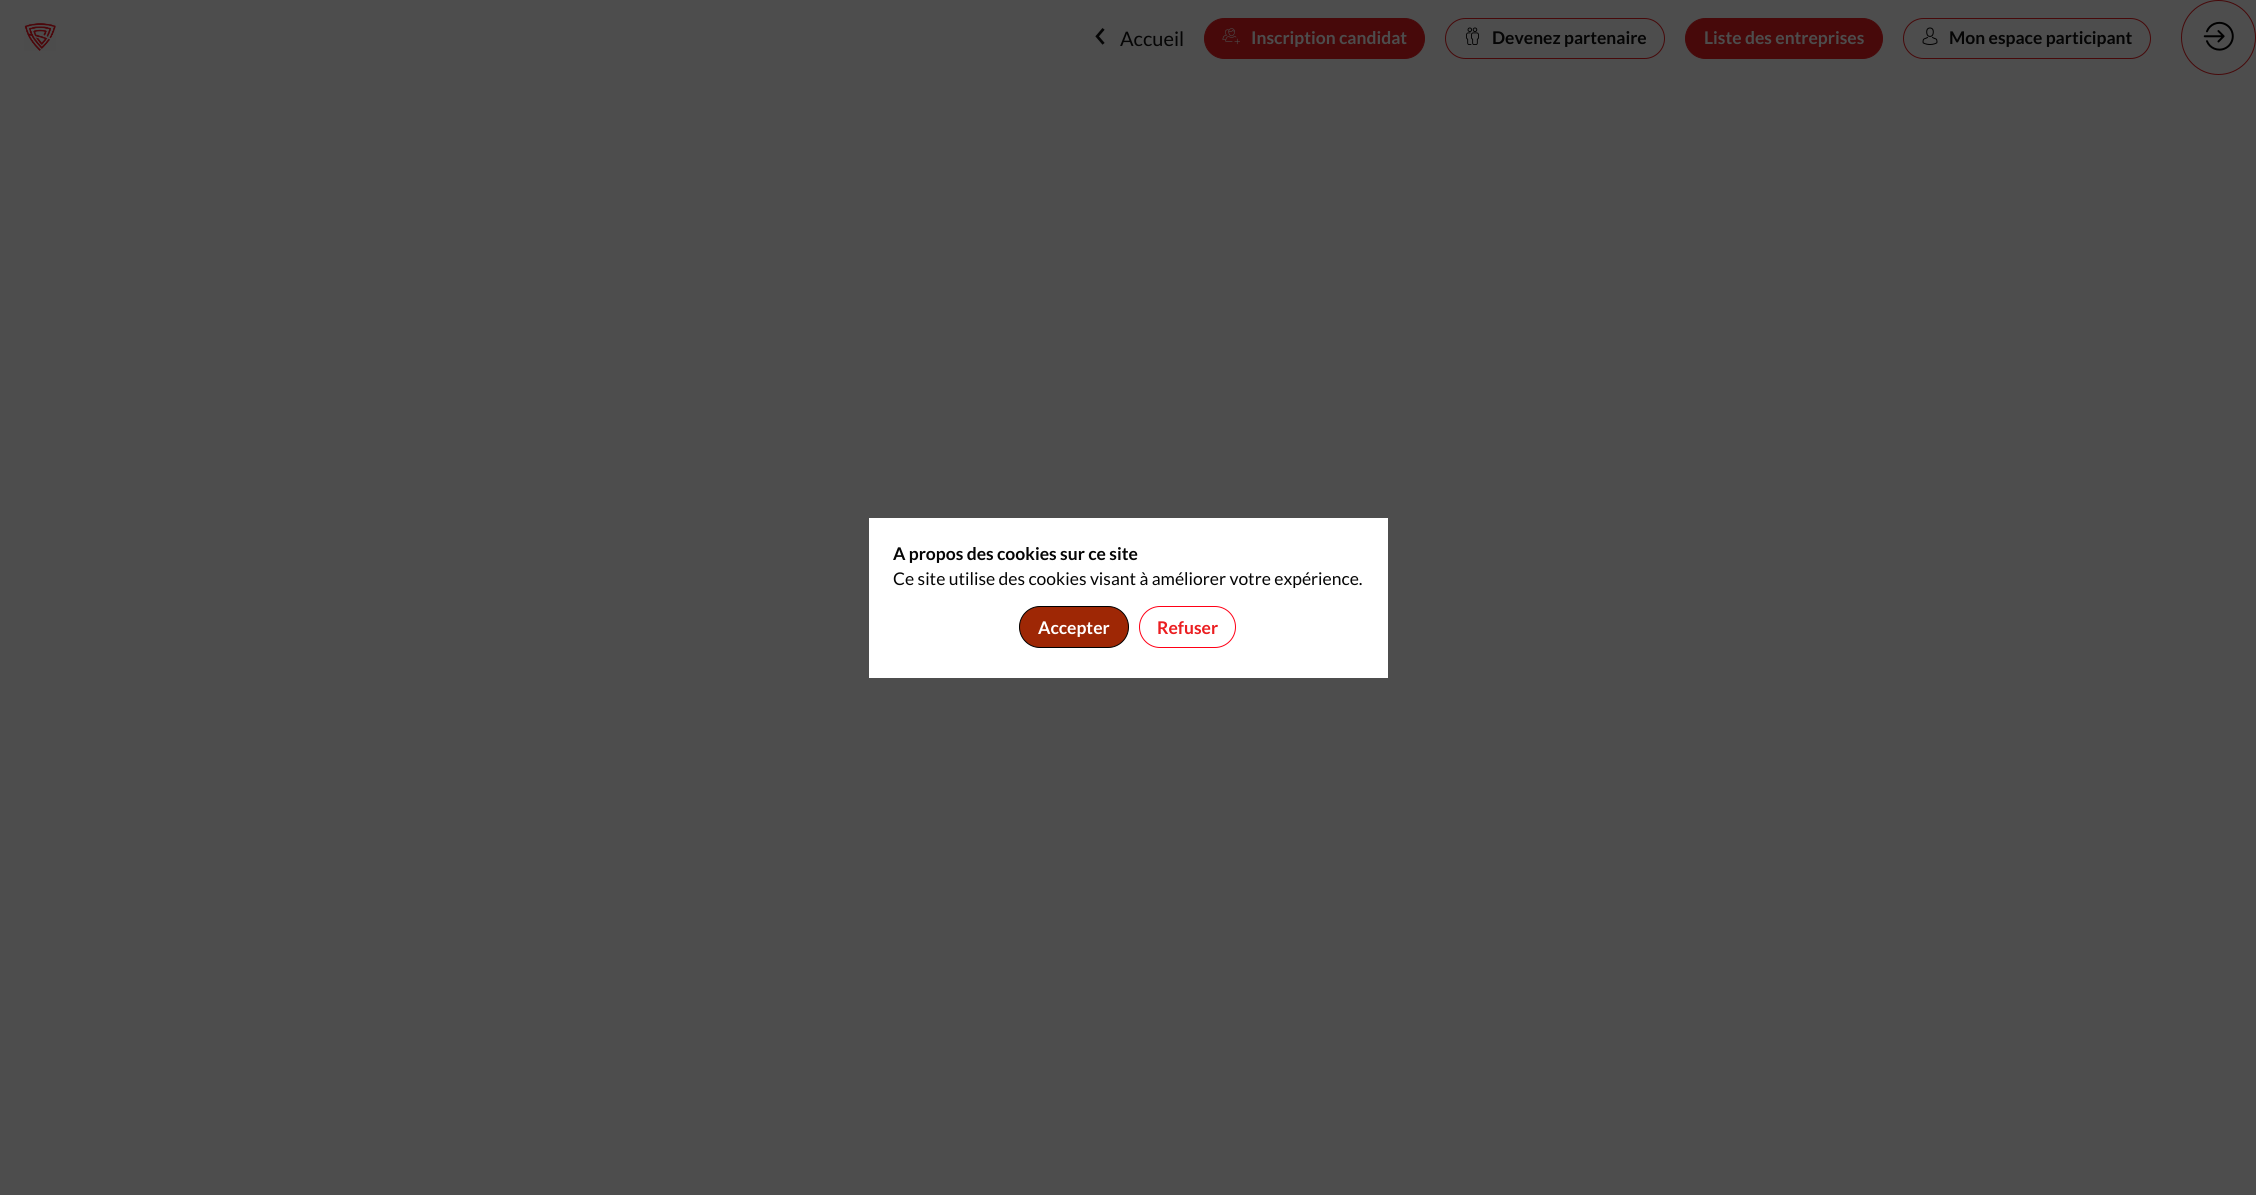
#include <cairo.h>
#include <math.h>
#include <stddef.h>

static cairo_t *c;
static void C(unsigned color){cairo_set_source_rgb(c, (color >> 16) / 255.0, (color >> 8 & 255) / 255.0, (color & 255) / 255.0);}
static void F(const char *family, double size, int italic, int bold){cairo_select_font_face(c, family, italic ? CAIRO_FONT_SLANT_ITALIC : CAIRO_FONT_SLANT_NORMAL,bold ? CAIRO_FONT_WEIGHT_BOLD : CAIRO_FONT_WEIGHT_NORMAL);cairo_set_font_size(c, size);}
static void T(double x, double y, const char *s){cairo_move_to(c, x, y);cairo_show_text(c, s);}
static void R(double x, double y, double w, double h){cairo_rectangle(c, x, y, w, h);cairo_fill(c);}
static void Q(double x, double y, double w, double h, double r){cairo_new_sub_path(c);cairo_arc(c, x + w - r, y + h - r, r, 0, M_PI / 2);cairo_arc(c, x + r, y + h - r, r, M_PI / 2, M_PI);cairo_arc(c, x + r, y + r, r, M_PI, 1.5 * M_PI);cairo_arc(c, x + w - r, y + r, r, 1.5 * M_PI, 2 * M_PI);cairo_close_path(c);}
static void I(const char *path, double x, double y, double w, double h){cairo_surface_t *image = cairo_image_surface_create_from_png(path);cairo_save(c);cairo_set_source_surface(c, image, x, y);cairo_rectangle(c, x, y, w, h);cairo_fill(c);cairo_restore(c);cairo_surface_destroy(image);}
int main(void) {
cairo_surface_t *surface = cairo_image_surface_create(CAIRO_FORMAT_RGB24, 2256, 1195);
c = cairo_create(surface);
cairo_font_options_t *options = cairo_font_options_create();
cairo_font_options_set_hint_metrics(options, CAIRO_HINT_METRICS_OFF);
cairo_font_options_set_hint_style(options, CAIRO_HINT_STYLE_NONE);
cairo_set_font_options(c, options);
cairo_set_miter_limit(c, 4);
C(0x4d4d4d);
cairo_paint(c);
I("1.png",24,23,32,28);
I("2.png",1095,28,10,17);
F("Lato",20,0,0);
C(0x050505);
T(1120,46,"Accueil");
C(0x47090a);
Q(1204.5,18.5,220,40,20);
cairo_fill_preserve(c);
cairo_set_line_width(c,1);
cairo_stroke(c);
I("3.png",1222,28,18,17);
F("Lato",17.5,0,1);
C(0x4d4d4d);
T(1251,44,"Inscription candidat");
Q(1445.5,18.5,219,40,20);
C(0x47090a);
cairo_stroke(c);
I("4.png",1466,27,13,18);
C(0x050505);
T(1492,44,"Devenez partenaire");
C(0x47090a);
Q(1685.5,18.5,197,40,20);
cairo_fill_preserve(c);
cairo_stroke(c);
C(0x4d4d4d);
T(1704,44,"Liste des entreprises");
Q(1903.5,18.5,247,40,20);
C(0x47090a);
cairo_stroke(c);
I("5.png",1922,27,16,18);
C(0x050505);
T(1949,44,"Mon espace participant");
cairo_new_path(c);
cairo_arc(c,2218.5,37.5,37,0,2 * M_PI);
C(0x47090a);
cairo_stroke(c);
I("6.png",2203,21,31,30);
C(0xffffff);
R(869,518,519,160);
C(0x050505);
T(893,560,"A propos des cookies sur ce site");
F("Lato",17.5,0,0);
T(893,585,"Ce site utilise des cookies visant à améliorer votre expérience.");
C(0x9e2705);
Q(1019.5,606.5,109,41,20.5);
cairo_fill_preserve(c);
C(0x000000);
cairo_stroke(c);
F("Lato",17.5,0,1);
C(0xffffff);
T(1038,634,"Accepter");
Q(1139.5,606.5,96,41,20.5);
C(0xff0016);
cairo_stroke(c);
C(0xeb1d20);
T(1157,634,"Refuser");
cairo_surface_write_to_png(surface, "o.png");
cairo_font_options_destroy(options);
cairo_destroy(c);
cairo_surface_destroy(surface);
return 0;
}
